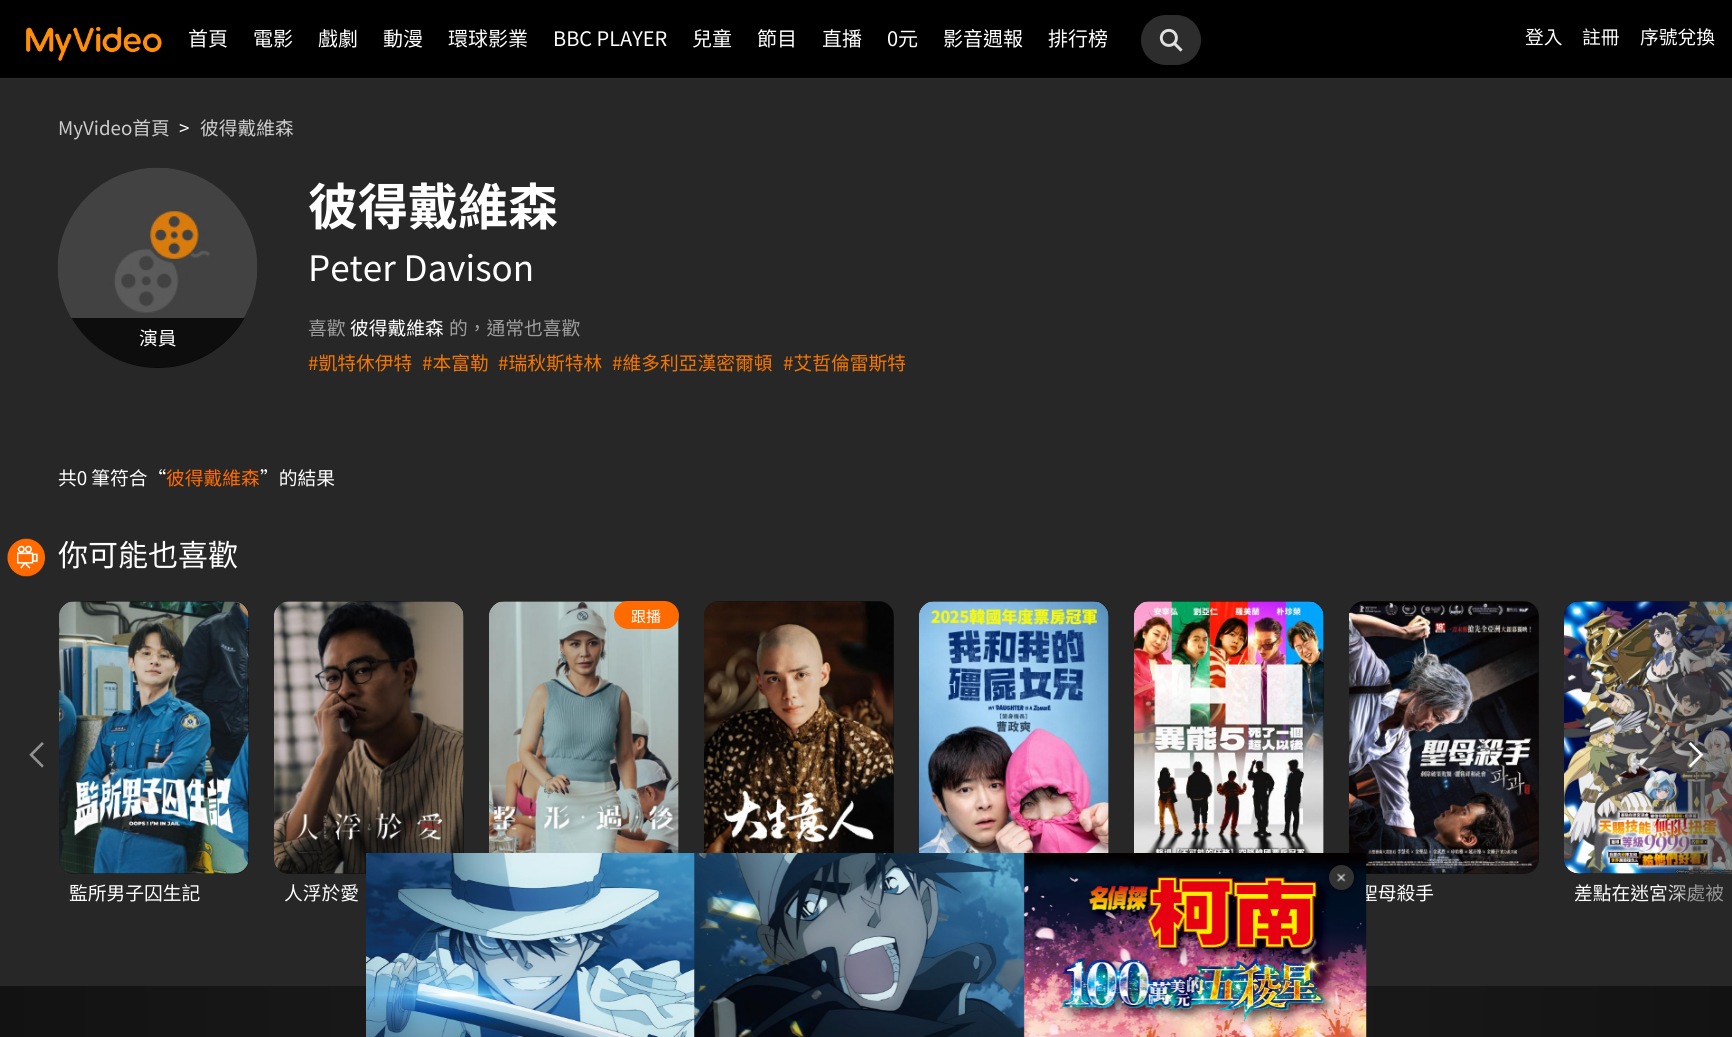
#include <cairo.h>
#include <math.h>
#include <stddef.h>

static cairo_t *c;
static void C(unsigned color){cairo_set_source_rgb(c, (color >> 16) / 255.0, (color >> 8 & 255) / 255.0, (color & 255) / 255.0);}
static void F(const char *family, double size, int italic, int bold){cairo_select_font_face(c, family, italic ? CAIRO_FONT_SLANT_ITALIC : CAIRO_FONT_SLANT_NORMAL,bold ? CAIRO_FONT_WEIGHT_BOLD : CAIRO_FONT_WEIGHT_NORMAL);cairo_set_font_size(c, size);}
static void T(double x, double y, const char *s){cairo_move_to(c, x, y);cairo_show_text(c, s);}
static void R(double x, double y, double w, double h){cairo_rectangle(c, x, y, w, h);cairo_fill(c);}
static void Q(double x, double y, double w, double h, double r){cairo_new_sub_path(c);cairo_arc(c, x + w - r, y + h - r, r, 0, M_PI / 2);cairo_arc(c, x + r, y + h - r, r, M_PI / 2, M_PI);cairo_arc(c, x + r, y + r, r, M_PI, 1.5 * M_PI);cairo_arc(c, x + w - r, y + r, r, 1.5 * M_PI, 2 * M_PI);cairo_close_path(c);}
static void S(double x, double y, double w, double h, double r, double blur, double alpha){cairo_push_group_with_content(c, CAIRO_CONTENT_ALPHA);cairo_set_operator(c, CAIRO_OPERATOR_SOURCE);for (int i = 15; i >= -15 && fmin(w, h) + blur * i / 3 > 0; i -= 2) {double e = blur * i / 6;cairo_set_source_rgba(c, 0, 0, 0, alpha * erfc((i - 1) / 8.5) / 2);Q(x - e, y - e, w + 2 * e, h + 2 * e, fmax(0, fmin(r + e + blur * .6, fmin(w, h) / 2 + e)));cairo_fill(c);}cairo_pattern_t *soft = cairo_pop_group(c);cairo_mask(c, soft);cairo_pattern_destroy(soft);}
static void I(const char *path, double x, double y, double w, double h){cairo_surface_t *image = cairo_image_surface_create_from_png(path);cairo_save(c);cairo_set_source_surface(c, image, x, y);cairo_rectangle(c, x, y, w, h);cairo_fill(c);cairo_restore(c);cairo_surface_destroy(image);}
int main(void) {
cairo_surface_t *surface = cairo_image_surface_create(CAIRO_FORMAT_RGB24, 1732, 1037);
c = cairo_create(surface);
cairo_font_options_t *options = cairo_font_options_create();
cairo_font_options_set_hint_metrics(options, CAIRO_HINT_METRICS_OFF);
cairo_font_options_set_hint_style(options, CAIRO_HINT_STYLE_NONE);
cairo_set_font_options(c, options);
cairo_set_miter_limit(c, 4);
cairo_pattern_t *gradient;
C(0x272727);
cairo_paint(c);
C(0x000000);
R(0,0,1732,78);
C(0x2d2d2d);
R(0,78,1732,1);
I("1.png",26,26,136,35);
F("Noto Sans TC",20,0,0);
C(0xffffff);
T(188,46,"首頁");
T(253,46,"電影");
T(318,46,"戲劇");
T(383,46,"動漫");
T(448,46,"環球影業");
T(553,46,"BBC PLAYER");
T(692,46,"兒童");
T(757,46,"節目");
T(822,46,"直播");
T(887,46,"0元");
T(943,46,"影音週報");
T(1048,46,"排行榜");
C(0x2d2d2d);
Q(1141,15,60,50,25);
cairo_fill(c);
I("2.png",1159,28,24,24);
F("Noto Sans TC",18.75,0,0);
C(0xffffff);
T(1525,44,"登入");
T(1582,44,"註冊");
T(1640,44,"序號兌換");
C(0x121212);
Q(489,601,190,273,15);
cairo_fill(c);
Q(704,601,190,273,15);
cairo_fill(c);
Q(919,601,190,273,15);
cairo_fill(c);
Q(1134,601,190,273,15);
cairo_fill(c);
Q(274,601,190,273,15);
cairo_fill(c);
I("15.png",274,601,190,273);
Q(1349,601,190,273,15);
cairo_fill(c);
I("16.png",1349,601,190,273);
C(0xffffff);
T(1359,900,"聖母殺手");
gradient = cairo_pattern_create_linear(0,1019,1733,1019);
cairo_pattern_add_color_stop_rgba(gradient,0,0.071,0.071,0.071,1);
cairo_pattern_add_color_stop_rgba(gradient,.52,0.129,0.129,0.129,1);
cairo_pattern_add_color_stop_rgba(gradient,1,0.071,0.071,0.071,1);
cairo_set_source(c,gradient);
cairo_pattern_destroy(gradient);
R(0,986,1732,51);
I("4.png",366,853,1001,184);
I("13.png",1134,601,190,252);
C(0x000000);
S(1329,865,25,25,12.5,6,.5);
C(0x333333);
cairo_arc(c,1341.5,877.5,12.5,0,2 * M_PI);
cairo_fill(c);
I("3.png",1336,873,10,9);
C(0xcccccc);
T(58,135,"MyVideo首頁");
C(0xffffff);
T(179,135,">");
C(0xcccccc);
T(200,135,"彼得戴維森");
I("5.png",57,167,201,201);
I("6.png",57,167,201,201);
cairo_save(c);
Q(58,168,200,200,100);
cairo_clip(c);
cairo_set_source_rgba(c,0,0,0,0.8);
R(71,318,174,50);
cairo_restore(c);
C(0xffffff);
T(139,345,"演員");
F("Noto Sans TC",50,0,1);
T(308,225,"彼得戴維森");
F("Noto Sans TC",35,0,0);
T(308,281,"Peter Davison");
F("Noto Sans TC",18.75,0,0);
C(0x9e9e9e);
T(308,335,"喜歡");
C(0xffffff);
T(350,335,"彼得戴維森");
C(0x9e9e9e);
T(449,335,"的，通常也喜歡");
C(0xf57600);
T(308,370,"#凱特休伊特");
T(422,370,"#本富勒");
T(498,370,"#瑞秋斯特林");
T(612,370,"#維多利亞漢密爾頓");
T(783,370,"#艾哲倫雷斯特");
C(0xffffff);
T(58,485,"共0 筆符合“");
C(0xff6b00);
T(166,485,"彼得戴維森");
C(0xffffff);
T(260,485,"”的結果");
I("7.png",7,538,38,39);
F("Noto Sans TC",30,0,0);
T(58,566,"你可能也喜歡");
C(0x121212);
Q(59,601,190,273,15);
cairo_fill(c);
I("14.png",59,601,190,273);
F("Noto Sans TC",18.75,0,0);
C(0xffffff);
T(69,900,"監所男子囚生記");
gradient = cairo_pattern_create_linear(0,754,75,754);
cairo_pattern_add_color_stop_rgba(gradient,.5,0.153,0.153,0.153,.5);
cairo_pattern_add_color_stop_rgba(gradient,1,0.153,0.153,0.153,0);
cairo_set_source(c,gradient);
cairo_pattern_destroy(gradient);
R(59,602,14,299);
I("8.png",29,742,15,26);
C(0x121212);
cairo_new_path(c);
cairo_move_to(c,1579,601);
cairo_line_to(c,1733,601);
cairo_line_to(c,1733,874);
cairo_line_to(c,1579,874);
cairo_curve_to(c,1570.5,874,1564,867.5,1564,859);
cairo_line_to(c,1564,616);
cairo_curve_to(c,1564,607.5,1570.5,601,1579,601);
cairo_close_path(c);
cairo_fill(c);
I("17.png",1564,601,168,273);
C(0xffffff);
T(1574,900,"差點在迷宮深處被");
gradient = cairo_pattern_create_linear(1658,754,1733,754);
cairo_pattern_add_color_stop_rgba(gradient,0,0.153,0.153,0.153,0);
cairo_pattern_add_color_stop_rgba(gradient,.5,0.153,0.153,0.153,.5);
cairo_set_source(c,gradient);
cairo_pattern_destroy(gradient);
R(1660,601,72,301);
I("9.png",1688,742,16,26);
I("10.png",489,601,190,252);
C(0xff6b00);
cairo_new_path(c);
cairo_move_to(c,628,601);
cairo_line_to(c,664,601);
cairo_curve_to(c,672.5,601,679,607.5,679,616);
cairo_line_to(c,679,615);
cairo_curve_to(c,679,622.5,672.5,629,665,629);
cairo_line_to(c,628,629);
cairo_curve_to(c,620.5,629,614,622.5,614,615);
cairo_curve_to(c,614,607.5,620.5,601,628,601);
cairo_close_path(c);
cairo_fill(c);
F("Noto Sans TC",15,0,0);
C(0xffffff);
T(631,622,"跟播");
I("11.png",704,601,190,252);
I("12.png",919,601,190,252);
F("Noto Sans TC",18.75,0,0);
T(284,900,"人浮於愛");
cairo_surface_write_to_png(surface, "o.png");
cairo_font_options_destroy(options);
cairo_destroy(c);
cairo_surface_destroy(surface);
return 0;
}
